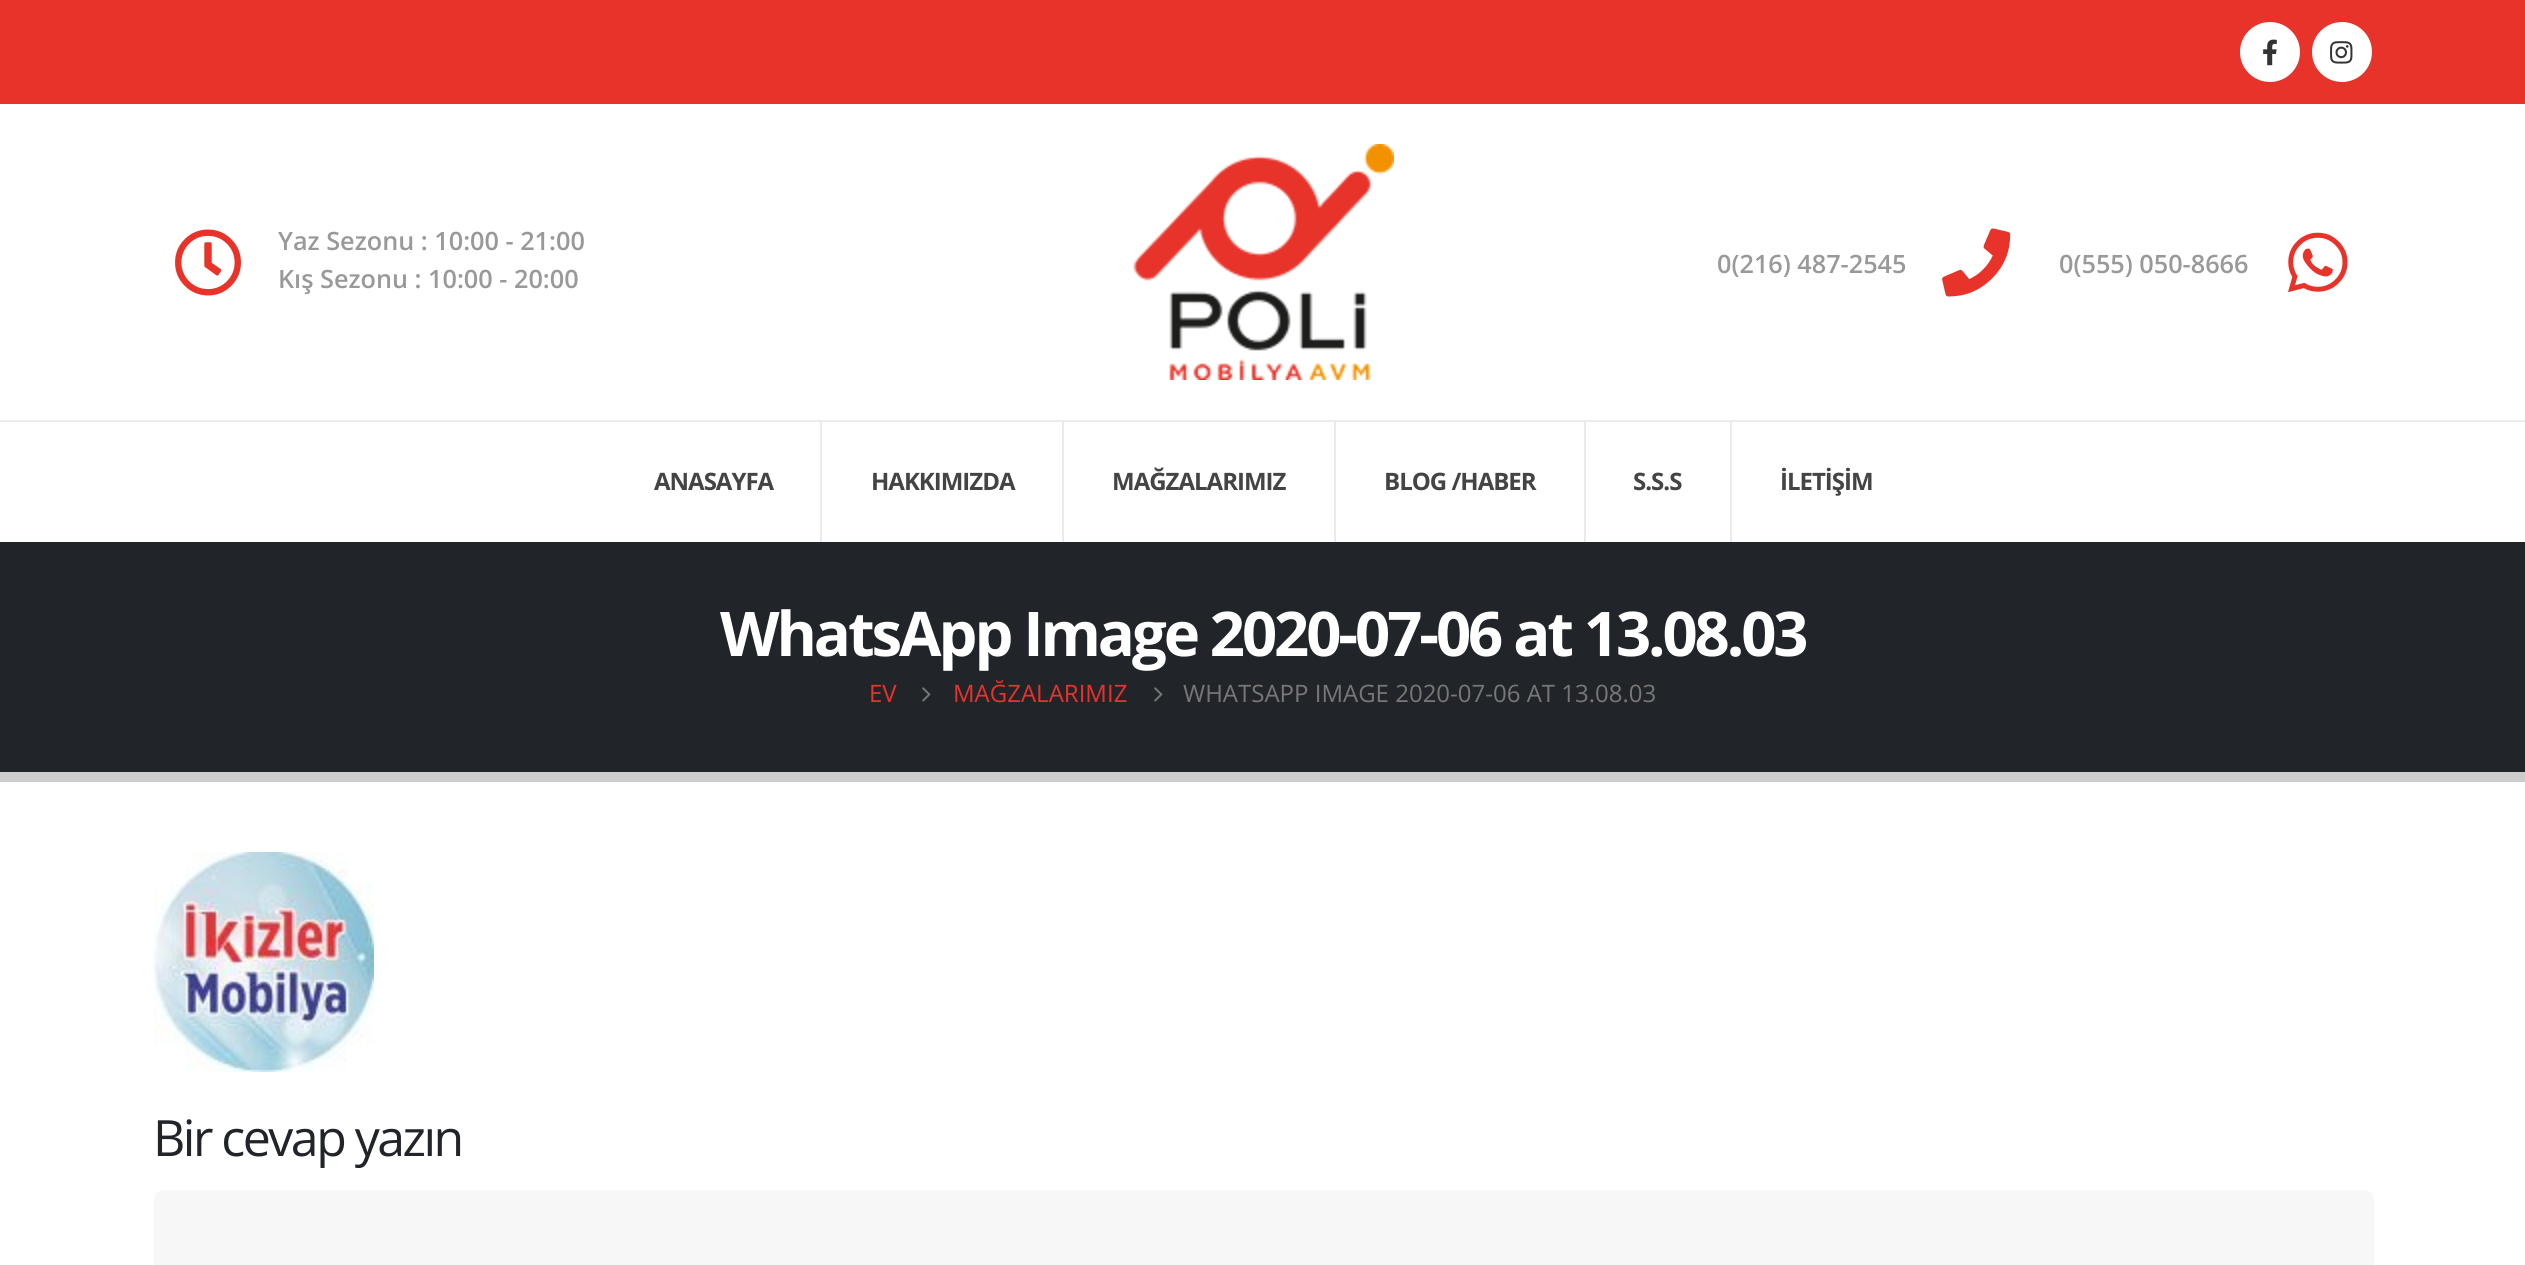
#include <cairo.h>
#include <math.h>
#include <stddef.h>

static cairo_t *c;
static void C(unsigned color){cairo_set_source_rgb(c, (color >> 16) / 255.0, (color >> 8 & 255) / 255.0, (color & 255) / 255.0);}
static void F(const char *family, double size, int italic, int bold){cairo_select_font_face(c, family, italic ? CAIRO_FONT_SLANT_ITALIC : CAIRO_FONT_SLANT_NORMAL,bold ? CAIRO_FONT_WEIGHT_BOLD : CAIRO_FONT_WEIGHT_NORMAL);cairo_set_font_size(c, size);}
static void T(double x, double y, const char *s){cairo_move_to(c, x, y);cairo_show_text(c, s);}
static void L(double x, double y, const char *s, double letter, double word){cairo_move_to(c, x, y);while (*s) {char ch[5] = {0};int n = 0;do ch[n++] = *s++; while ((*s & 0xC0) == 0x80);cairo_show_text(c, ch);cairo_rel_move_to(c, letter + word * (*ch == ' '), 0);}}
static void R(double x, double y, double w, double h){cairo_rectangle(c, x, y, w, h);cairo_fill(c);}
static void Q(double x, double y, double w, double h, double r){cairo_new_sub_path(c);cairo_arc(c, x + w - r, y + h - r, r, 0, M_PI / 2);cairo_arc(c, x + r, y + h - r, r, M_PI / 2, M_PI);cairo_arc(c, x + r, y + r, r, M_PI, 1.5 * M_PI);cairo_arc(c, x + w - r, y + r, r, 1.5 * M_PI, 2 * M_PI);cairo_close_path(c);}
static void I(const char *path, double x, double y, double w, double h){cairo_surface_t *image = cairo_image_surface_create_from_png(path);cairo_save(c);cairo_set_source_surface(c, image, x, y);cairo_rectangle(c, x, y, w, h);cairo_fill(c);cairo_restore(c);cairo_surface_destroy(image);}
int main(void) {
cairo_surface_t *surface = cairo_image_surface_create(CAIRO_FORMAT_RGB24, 2525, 1265);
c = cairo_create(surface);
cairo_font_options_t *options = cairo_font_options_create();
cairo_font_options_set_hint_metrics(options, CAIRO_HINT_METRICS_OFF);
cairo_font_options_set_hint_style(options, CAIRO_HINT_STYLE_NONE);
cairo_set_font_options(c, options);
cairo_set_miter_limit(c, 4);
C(0xffffff);
cairo_paint(c);
C(0xe7332a);
R(0,0,2525,104);
C(0xffffff);
cairo_arc(c,2270,52,30,0,2 * M_PI);
cairo_fill(c);
I("1.png",2263,39,14,27);
cairo_arc(c,2342,52,30,0,2 * M_PI);
cairo_fill(c);
I("2.png",2330,41,23,23);
I("3.png",175,229,66,67);
F("Open Sans SemiBold",25.25,0,0);
C(0x999999);
T(278,250,"Yaz Sezonu : 10:00 - 21:00");
T(278,288,"Kış Sezonu : 10:00 - 20:00");
I("4.png",1133,144,261,236);
T(1717,273,"0(216) 487-2545");
I("5.png",1942,228,69,69);
T(2059,273,"0(555) 050-8666");
I("6.png",2288,232,60,61);
C(0xebebeb);
R(0,420,2525,2);
R(820,422,2,120);
F("Open Sans",24,0,1);
C(0x444444);
L(654,490,"ANASAYFA",-1,0);
C(0xebebeb);
R(1062,422,2,120);
C(0x444444);
L(871,490,"HAKKIMIZDA",-1,0);
C(0xebebeb);
R(1334,422,2,120);
C(0x444444);
L(1112,490,"MAĞZALARIMIZ",-1,0);
C(0xebebeb);
R(1584,422,2,120);
C(0x444444);
L(1384,490,"BLOG /HABER",-1,0);
C(0xebebeb);
R(1730,422,2,120);
C(0x444444);
L(1633,490,"S.S.S",-1,0);
L(1780,490,"İLETİŞİM",-1,0);
C(0x212529);
R(0,542,2525,230);
C(0xcccccc);
R(0,772,2525,10);
F("Open Sans",61.6,0,1);
C(0xffffff);
L(720,656,"WhatsApp Image 2020-07-06 at 13.08.03",-3.1,0);
F("Open Sans",24,0,0);
C(0xe7332a);
T(869,702,"EV");
I("7.png",922,687,9,15);
T(953,702,"MAĞZALARIMIZ");
I("7.png",1154,687,9,15);
C(0x777777);
T(1183,702,"WHATSAPP IMAGE 2020-07-06 AT 13.08.03");
I("8.png",154,852,220,220);
F("Open Sans",50,0,0);
C(0x212529);
L(153,1156,"Bir cevap yazın",-2.5,0);
C(0xf7f7f7);
Q(154,1190,2220,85,10);
cairo_fill(c);
cairo_surface_write_to_png(surface, "o.png");
cairo_font_options_destroy(options);
cairo_destroy(c);
cairo_surface_destroy(surface);
return 0;
}
